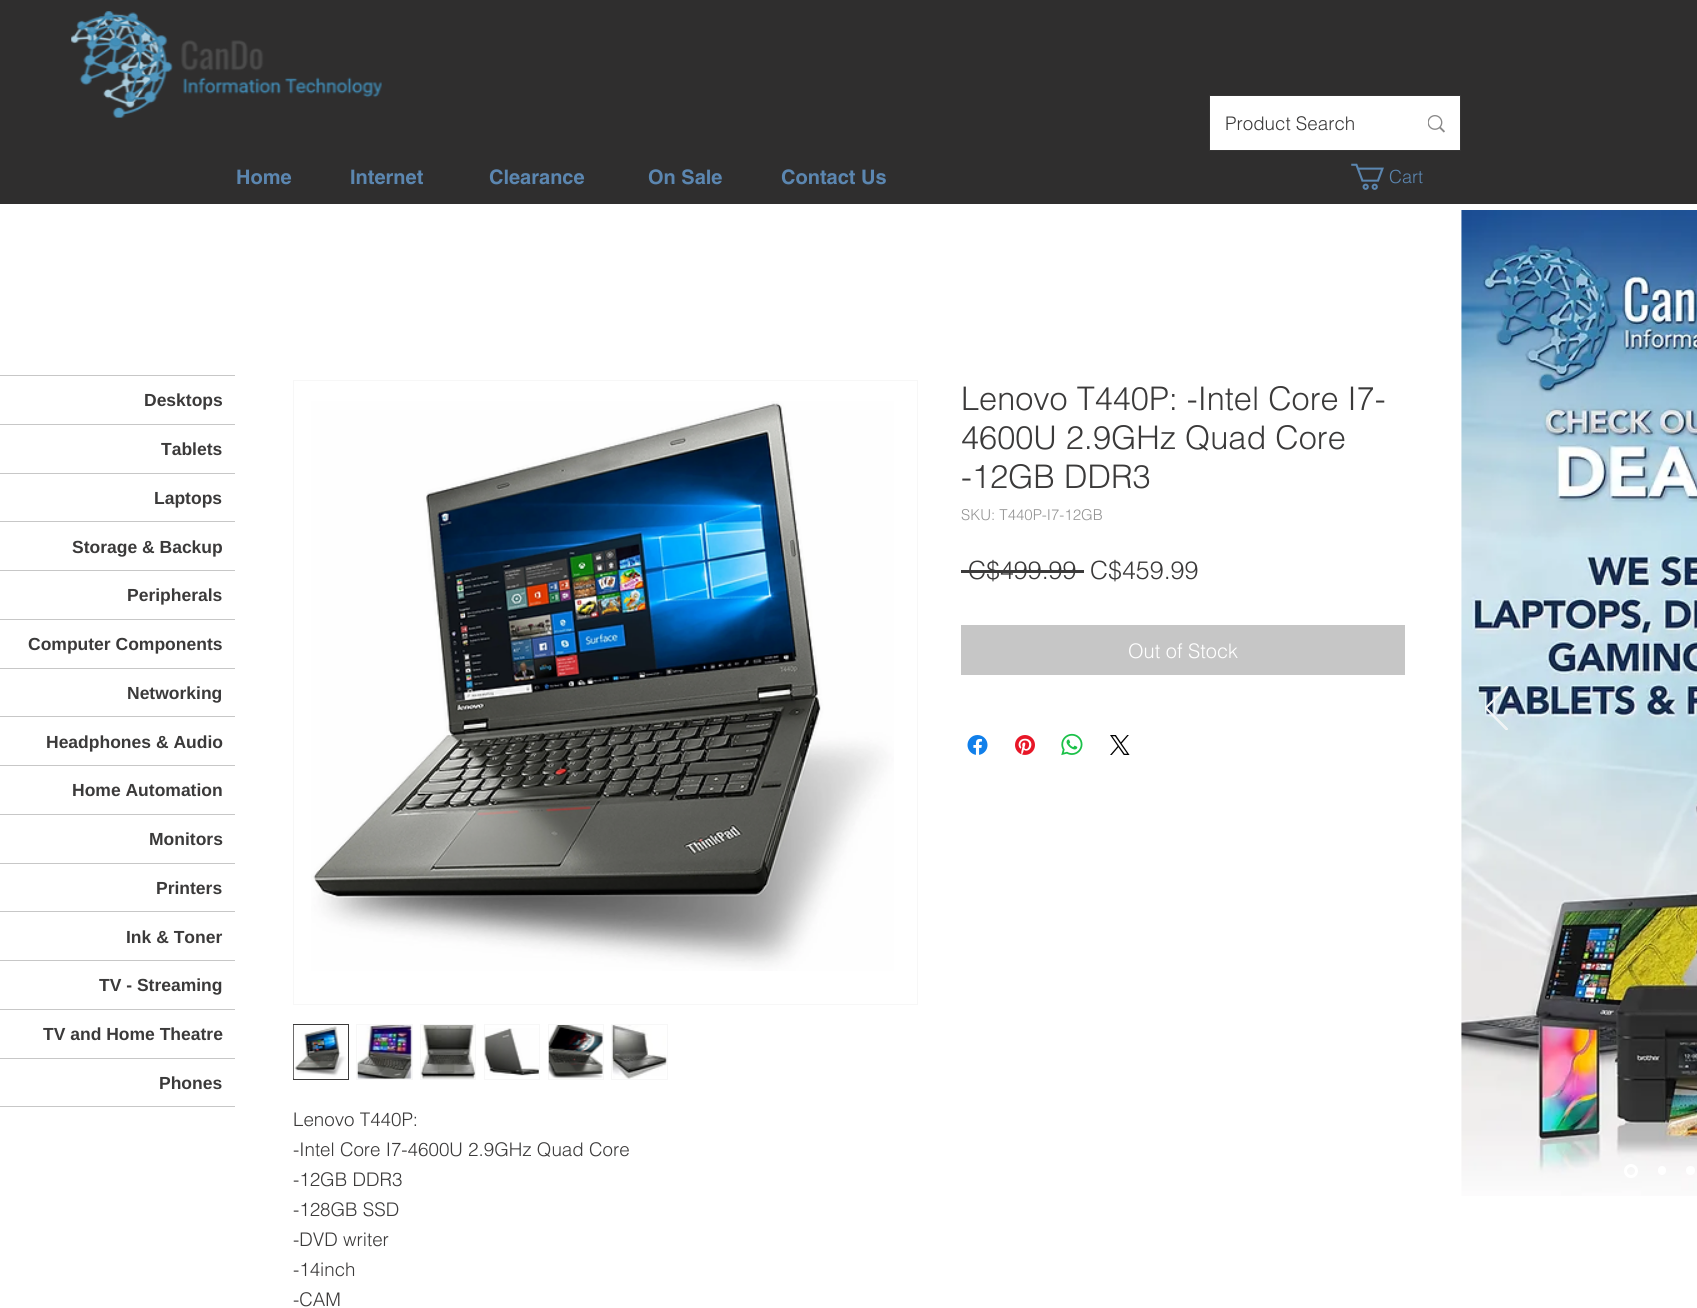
#include <cairo.h>
#include <math.h>
#include <stddef.h>

static cairo_t *c;
static void C(unsigned color){cairo_set_source_rgb(c, (color >> 16) / 255.0, (color >> 8 & 255) / 255.0, (color & 255) / 255.0);}
static void F(const char *family, double size, int italic, int bold){cairo_select_font_face(c, family, italic ? CAIRO_FONT_SLANT_ITALIC : CAIRO_FONT_SLANT_NORMAL,bold ? CAIRO_FONT_WEIGHT_BOLD : CAIRO_FONT_WEIGHT_NORMAL);cairo_set_font_size(c, size);}
static void T(double x, double y, const char *s){cairo_move_to(c, x, y);cairo_show_text(c, s);}
static void R(double x, double y, double w, double h){cairo_rectangle(c, x, y, w, h);cairo_fill(c);}
static void Q(double x, double y, double w, double h, double r){cairo_new_sub_path(c);cairo_arc(c, x + w - r, y + h - r, r, 0, M_PI / 2);cairo_arc(c, x + r, y + h - r, r, M_PI / 2, M_PI);cairo_arc(c, x + r, y + r, r, M_PI, 1.5 * M_PI);cairo_arc(c, x + w - r, y + r, r, 1.5 * M_PI, 2 * M_PI);cairo_close_path(c);}
static void I(const char *path, double x, double y, double w, double h){cairo_surface_t *image = cairo_image_surface_create_from_png(path);cairo_save(c);cairo_set_source_surface(c, image, x, y);cairo_rectangle(c, x, y, w, h);cairo_fill(c);cairo_restore(c);cairo_surface_destroy(image);}
int main(void) {
cairo_surface_t *surface = cairo_image_surface_create(CAIRO_FORMAT_RGB24, 1697, 1308);
c = cairo_create(surface);
cairo_font_options_t *options = cairo_font_options_create();
cairo_font_options_set_hint_metrics(options, CAIRO_HINT_METRICS_OFF);
cairo_font_options_set_hint_style(options, CAIRO_HINT_STYLE_NONE);
cairo_set_font_options(c, options);
cairo_set_miter_limit(c, 4);
C(0xffffff);
cairo_paint(c);
C(0x2f2e2e);
R(0,0,1697,204);
I("1.png",71,11,311,107);
cairo_rectangle(c,1209.5,95.5,251,55);
C(0x363535);
cairo_set_line_width(c,1);
cairo_stroke(c);
C(0xffffff);
R(1210,96,250,54);
F("helvetica Light",18.75,0,0);
C(0x3b3a3a);
T(1225,130,"Product Search");
I("2.png",1428,115,17,18);
F("helvetica",20,0,1);
C(0x5b86b0);
T(236,184,"Home");
T(350,184,"Internet");
T(489,184,"Clearance");
T(648,184,"On Sale");
T(781,184,"Contact Us");
I("3.png",1351,163,33,27);
F("helvetica Light",18,0,0);
T(1389,183,"Cart");
C(0xc7c7c7);
R(0,375,235,1);
R(0,1106,235,1);
R(0,424,235,1);
F("Liberation Sans",17.5,0,1);
C(0x3b3a3a);
T(144,406,"Desktops");
C(0xc7c7c7);
R(0,473,235,1);
C(0x3b3a3a);
T(161,455,"Tablets");
C(0xc7c7c7);
R(0,521,235,1);
C(0x3b3a3a);
T(154,504,"Laptops");
C(0xc7c7c7);
R(0,570,235,1);
C(0x3b3a3a);
T(72,553,"Storage & Backup");
C(0xc7c7c7);
R(0,619,235,1);
C(0x3b3a3a);
T(127,601,"Peripherals");
C(0xc7c7c7);
R(0,668,235,1);
C(0x3b3a3a);
T(28,650,"Computer Components");
C(0xc7c7c7);
R(0,716,235,1);
C(0x3b3a3a);
T(127,699,"Networking");
C(0xc7c7c7);
R(0,765,235,1);
C(0x3b3a3a);
T(46,748,"Headphones & Audio");
C(0xc7c7c7);
R(0,814,235,1);
C(0x3b3a3a);
T(72,796,"Home Automation");
C(0xc7c7c7);
R(0,863,235,1);
C(0x3b3a3a);
T(149,845,"Monitors");
C(0xc7c7c7);
R(0,911,235,1);
C(0x3b3a3a);
T(156,894,"Printers");
C(0xc7c7c7);
R(0,960,235,1);
C(0x3b3a3a);
T(126,943,"Ink & Toner");
C(0xc7c7c7);
R(0,1009,235,1);
C(0x3b3a3a);
T(99,991,"TV - Streaming");
C(0xc7c7c7);
R(0,1058,235,1);
C(0x3b3a3a);
T(43,1040,"TV and Home Theatre");
T(159,1089,"Phones");
I("4.png",1461,210,236,986);
cairo_save(c);
cairo_rectangle(c,1485,686,23,44);
cairo_clip(c);
cairo_new_path(c);
cairo_move_to(c,1506.5,730);
cairo_line_to(c,1485,708);
cairo_line_to(c,1506.5,686.5);
cairo_line_to(c,1507.5,687);
cairo_line_to(c,1486.5,708);
cairo_line_to(c,1507.5,729);
cairo_close_path(c);
C(0xf7f7f7);
cairo_set_line_width(c,1.1);
cairo_stroke(c);
cairo_restore(c);
cairo_arc(c,1631,1171,5.5,0,2 * M_PI);
C(0xffffff);
cairo_set_line_width(c,3);
cairo_stroke(c);
Q(1658,1166,8,9,4);
cairo_fill(c);
cairo_arc(c,1690.5,1170.5,4.5,0,2 * M_PI);
cairo_fill(c);
F("helvetica Light",32.5,0,0);
C(0x3b3a3a);
T(961,410,"Lenovo T440P: -Intel Core I7-");
T(961,449,"4600U 2.9GHz Quad Core");
T(961,488,"-12GB DDR3");
F("helvetica Light",15,0,0);
C(0x949494);
T(961,520,"SKU: T440P-I7-12GB");
F("helvetica Light",25,0,0);
C(0x3b3a3a);
T(968,579,"C$499.99");
R(961,570,123,3);
T(1090,579,"C$459.99");
C(0xc6c6c6);
R(961,625,444,50);
F("helvetica Light",20,0,0);
C(0xffffff);
T(1128,658,"Out of Stock");
I("5.png",967,735,21,20);
I("6.png",1015,735,20,20);
I("7.png",1061,733,22,23);
I("8.png",1110,735,20,20);
cairo_rectangle(c,293.5,380.5,624,624);
C(0xf7f7f7);
cairo_set_line_width(c,1);
cairo_stroke(c);
I("9.png",311,401,583,570);
cairo_rectangle(c,293.5,1024.5,55,55);
C(0x3b3a3a);
cairo_stroke(c);
I("10.png",293,1025,53,54);
cairo_rectangle(c,356.5,1024.5,56,55);
C(0xf7f7f7);
cairo_stroke(c);
I("11.png",357,1025,55,54);
cairo_rectangle(c,420.5,1024.5,55,55);
cairo_stroke(c);
I("12.png",420,1025,56,54);
cairo_rectangle(c,484.5,1024.5,55,55);
cairo_stroke(c);
I("13.png",484,1028,55,48);
cairo_rectangle(c,548.5,1024.5,55,55);
cairo_stroke(c);
I("14.png",548,1025,55,54);
cairo_rectangle(c,611.5,1024.5,56,55);
cairo_stroke(c);
I("15.png",612,1025,55,54);
F("helvetica Light",18.75,0,0);
C(0x3b3a3a);
T(293,1126,"Lenovo T440P:");
T(293,1156,"-Intel Core I7-4600U 2.9GHz Quad Core");
T(293,1186,"-12GB DDR3");
T(293,1216,"-128GB SSD");
T(293,1246,"-DVD writer");
T(293,1276,"-14inch");
T(293,1306,"-CAM");
cairo_surface_write_to_png(surface, "o.png");
cairo_font_options_destroy(options);
cairo_destroy(c);
cairo_surface_destroy(surface);
return 0;
}
